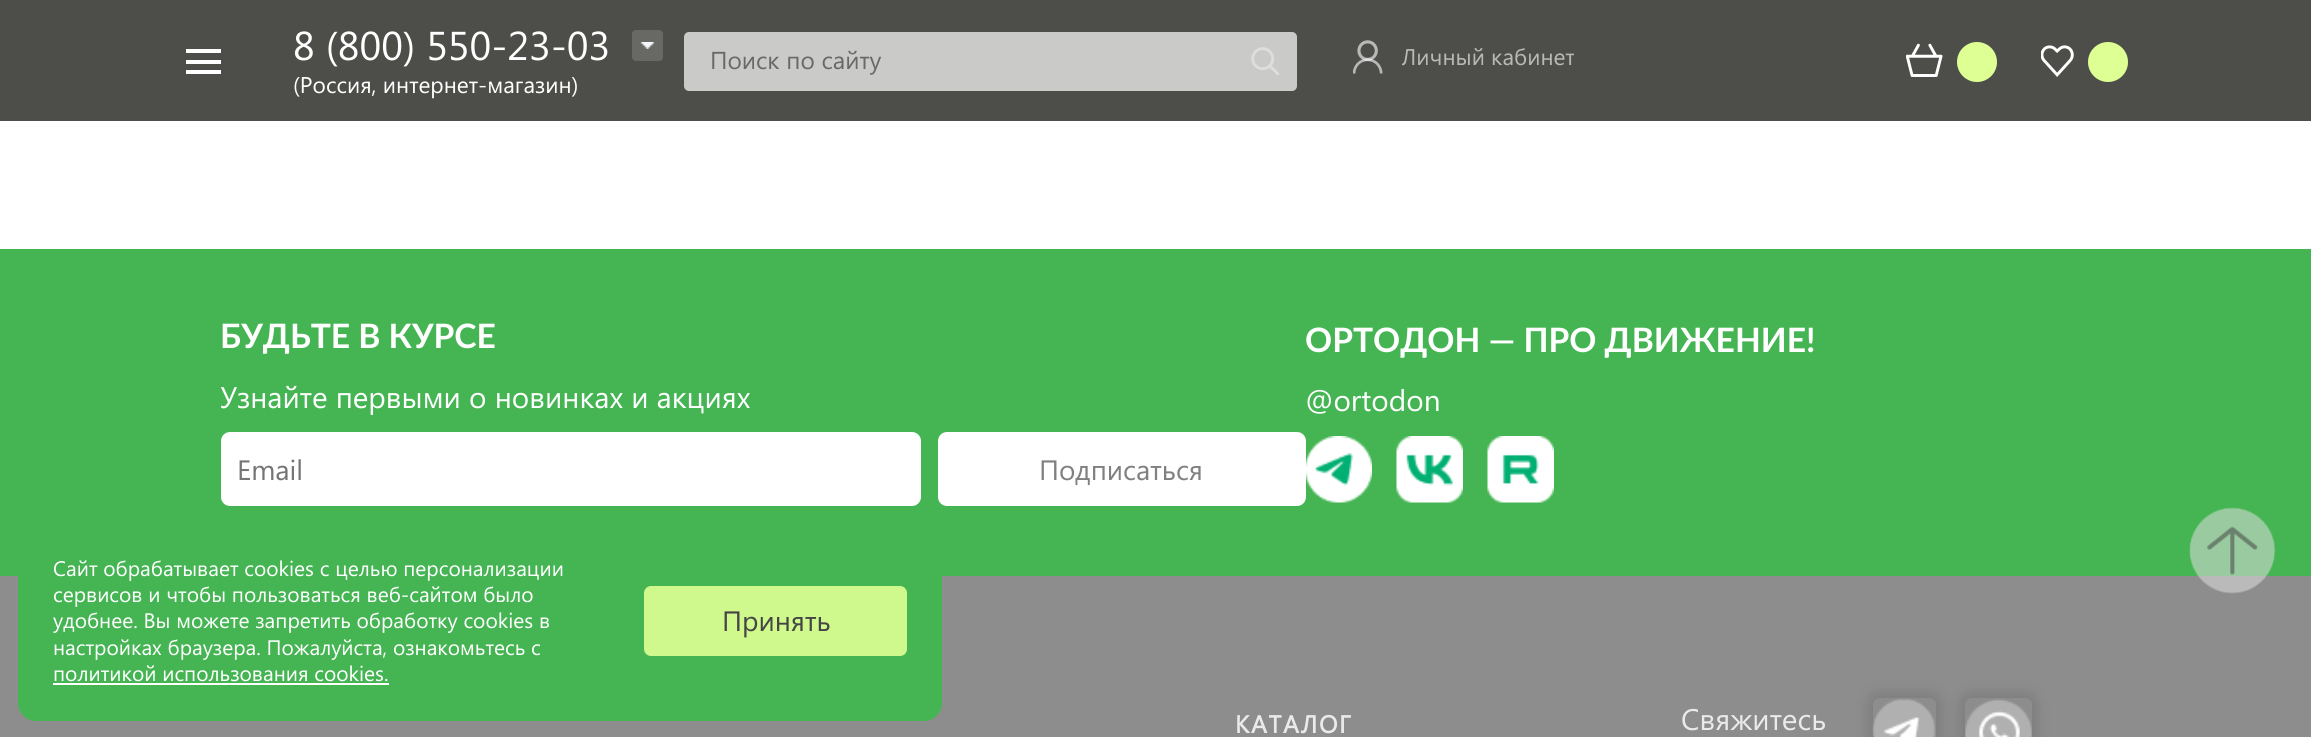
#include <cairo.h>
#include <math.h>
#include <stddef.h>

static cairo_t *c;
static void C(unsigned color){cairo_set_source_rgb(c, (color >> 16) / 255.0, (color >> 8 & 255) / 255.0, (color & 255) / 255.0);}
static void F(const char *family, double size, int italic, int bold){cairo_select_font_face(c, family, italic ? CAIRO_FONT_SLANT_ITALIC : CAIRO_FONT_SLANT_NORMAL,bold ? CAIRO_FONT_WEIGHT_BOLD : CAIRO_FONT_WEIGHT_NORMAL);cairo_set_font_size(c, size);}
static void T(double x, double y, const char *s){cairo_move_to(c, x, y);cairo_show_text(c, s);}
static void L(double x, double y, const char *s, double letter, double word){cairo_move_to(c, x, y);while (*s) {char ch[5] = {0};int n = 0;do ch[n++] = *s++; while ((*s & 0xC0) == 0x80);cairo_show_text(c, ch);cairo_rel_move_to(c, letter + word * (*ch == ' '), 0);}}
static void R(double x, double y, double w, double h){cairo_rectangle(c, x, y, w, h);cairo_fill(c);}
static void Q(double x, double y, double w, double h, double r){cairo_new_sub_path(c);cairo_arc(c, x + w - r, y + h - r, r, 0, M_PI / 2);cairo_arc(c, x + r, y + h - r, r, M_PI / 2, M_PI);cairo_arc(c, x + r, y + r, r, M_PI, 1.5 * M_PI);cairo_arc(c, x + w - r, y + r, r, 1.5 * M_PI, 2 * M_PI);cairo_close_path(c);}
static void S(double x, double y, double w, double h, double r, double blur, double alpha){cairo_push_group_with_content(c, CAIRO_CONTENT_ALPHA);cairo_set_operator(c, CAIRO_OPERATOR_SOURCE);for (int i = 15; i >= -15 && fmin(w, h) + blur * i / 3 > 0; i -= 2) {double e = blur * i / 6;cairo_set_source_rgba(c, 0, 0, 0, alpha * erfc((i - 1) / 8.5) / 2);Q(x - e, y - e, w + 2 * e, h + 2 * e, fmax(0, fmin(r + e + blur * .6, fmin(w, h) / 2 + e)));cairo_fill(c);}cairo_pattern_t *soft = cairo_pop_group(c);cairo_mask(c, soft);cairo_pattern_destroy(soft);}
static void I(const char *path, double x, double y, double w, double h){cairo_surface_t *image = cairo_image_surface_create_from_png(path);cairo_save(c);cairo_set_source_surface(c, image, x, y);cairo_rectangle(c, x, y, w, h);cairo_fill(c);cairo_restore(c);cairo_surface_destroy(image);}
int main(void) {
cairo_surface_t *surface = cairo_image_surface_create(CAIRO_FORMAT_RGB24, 2311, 737);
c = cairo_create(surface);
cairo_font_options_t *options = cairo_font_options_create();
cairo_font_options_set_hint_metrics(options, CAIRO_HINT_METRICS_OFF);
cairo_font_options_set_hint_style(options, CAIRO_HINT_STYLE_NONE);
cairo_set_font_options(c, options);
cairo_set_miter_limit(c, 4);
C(0xffffff);
cairo_paint(c);
C(0x4d4d4a);
R(0,0,2311,121);
C(0xffffff);
R(186,49,35,4);
R(186,60,35,4);
R(186,70,35,4);
F("Segoe UI",40.25,0,0);
T(293,60,"8 (800) 550-23-03");
C(0x686865);
Q(632,30,31,31,4);
cairo_fill(c);
I("1.png",640,42,14,7);
F("Segoe UI",22.75,0,0);
C(0xffffff);
T(293,93,"(Россия, интернет-магазин)");
C(0xcacac9);
Q(684,32,613,59,5);
cairo_fill(c);
F("Segoe UI",24.5,0,0);
C(0x696968);
T(710,69,"Поиск по сайту");
I("2.png",1251,47,28,28);
I("3.png",1353,40,30,34);
cairo_save(c);
cairo_rectangle(c,1402,40,173,32);
cairo_clip(c);
F("Segoe UI",22.75,0,0);
C(0xb8b8b7);
T(1401,65,"Личный кабинет");
cairo_restore(c);
I("4.png",1906,43,37,34);
C(0xdeff93);
cairo_arc(c,1977,62,20,0,2 * M_PI);
cairo_fill(c);
I("5.png",2041,45,33,32);
cairo_arc(c,2108,62,20,0,2 * M_PI);
cairo_fill(c);
C(0x45b553);
R(0,249,2311,327);
F("Lato",33.6,0,1);
C(0xffffff);
T(220,348,"БУДЬТЕ В КУРСЕ");
F("Segoe UI",29.75,0,0);
T(220,408,"Узнайте первыми о новинках и акциях");
Q(221,432,700,74,9);
cairo_fill(c);
F("Segoe UI",28,0,0);
C(0x757575);
T(237,480,"Email");
C(0xffffff);
Q(938,432,368,74,9);
cairo_fill(c);
C(0x808080);
T(1039,480,"Подписаться");
F("Lato",33.6,0,1);
C(0xffffff);
T(1305,352,"ОРТОДОН — ПРО ДВИЖЕНИЕ!");
F("Segoe UI",29.75,0,0);
T(1305,411,"@ortodon");
I("6.png",1306,436,66,67);
I("7.png",1396,436,67,67);
I("8.png",1487,436,67,67);
C(0x8d8d8d);
R(0,576,2311,161);
I("9.png",2189,507,87,87);
F("Segoe UI",24.5,0,1);
C(0xeaeaea);
L(1235,733,"КАТАЛОГ",1.75,0);
F("Segoe UI",29.75,0,0);
T(1681,730,"Свяжитесь");
cairo_save(c);
cairo_set_fill_rule(c,CAIRO_FILL_RULE_EVEN_ODD);
cairo_new_path(c);
cairo_move_to(c,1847,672);
cairo_line_to(c,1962,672);
cairo_line_to(c,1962,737);
cairo_line_to(c,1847,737);
cairo_close_path(c);
cairo_move_to(c,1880,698);
cairo_line_to(c,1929,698);
cairo_curve_to(c,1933,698,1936,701,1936,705);
cairo_line_to(c,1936,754);
cairo_curve_to(c,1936,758,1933,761,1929,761);
cairo_line_to(c,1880,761);
cairo_curve_to(c,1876,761,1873,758,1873,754);
cairo_line_to(c,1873,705);
cairo_curve_to(c,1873,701,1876,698,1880,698);
cairo_close_path(c);
cairo_clip(c);
C(0x323232);
S(1866,691,77,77,14,6,.15);
cairo_restore(c);
I("10.png",1872,698,64,39);
cairo_save(c);
cairo_set_fill_rule(c,CAIRO_FILL_RULE_EVEN_ODD);
cairo_new_path(c);
cairo_move_to(c,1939,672);
cairo_line_to(c,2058,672);
cairo_line_to(c,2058,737);
cairo_line_to(c,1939,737);
cairo_close_path(c);
cairo_move_to(c,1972,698);
cairo_line_to(c,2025,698);
cairo_curve_to(c,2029,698,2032,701,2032,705);
cairo_line_to(c,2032,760);
cairo_curve_to(c,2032,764,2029,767,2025,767);
cairo_line_to(c,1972,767);
cairo_curve_to(c,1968,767,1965,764,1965,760);
cairo_line_to(c,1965,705);
cairo_curve_to(c,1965,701,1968,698,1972,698);
cairo_close_path(c);
cairo_clip(c);
C(0x323232);
S(1958,691,81,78,14,6,.15);
cairo_restore(c);
I("11.png",1965,699,67,38);
C(0x45b553);
Q(18,520,924,201,18);
cairo_fill(c);
F("Segoe UI",21,0,0);
C(0xffffff);
T(53,576,"Сайт обрабатывает cookies с целью персонализации");
T(53,602,"сервисов и чтобы пользоваться веб-сайтом было");
T(53,628,"удобнее. Вы можете запретить обработку сookies в");
T(53,655,"настройках браузера. Пожалуйста, ознакомьтесь с");
T(53,681,"политикой использования cookies.");
R(53,683,336,2);
C(0xcff88d);
Q(644,586,263,70,7);
cairo_fill(c);
F("Segoe UI",28,0,0);
C(0x454545);
T(722,631,"Принять");
cairo_surface_write_to_png(surface, "o.png");
cairo_font_options_destroy(options);
cairo_destroy(c);
cairo_surface_destroy(surface);
return 0;
}
